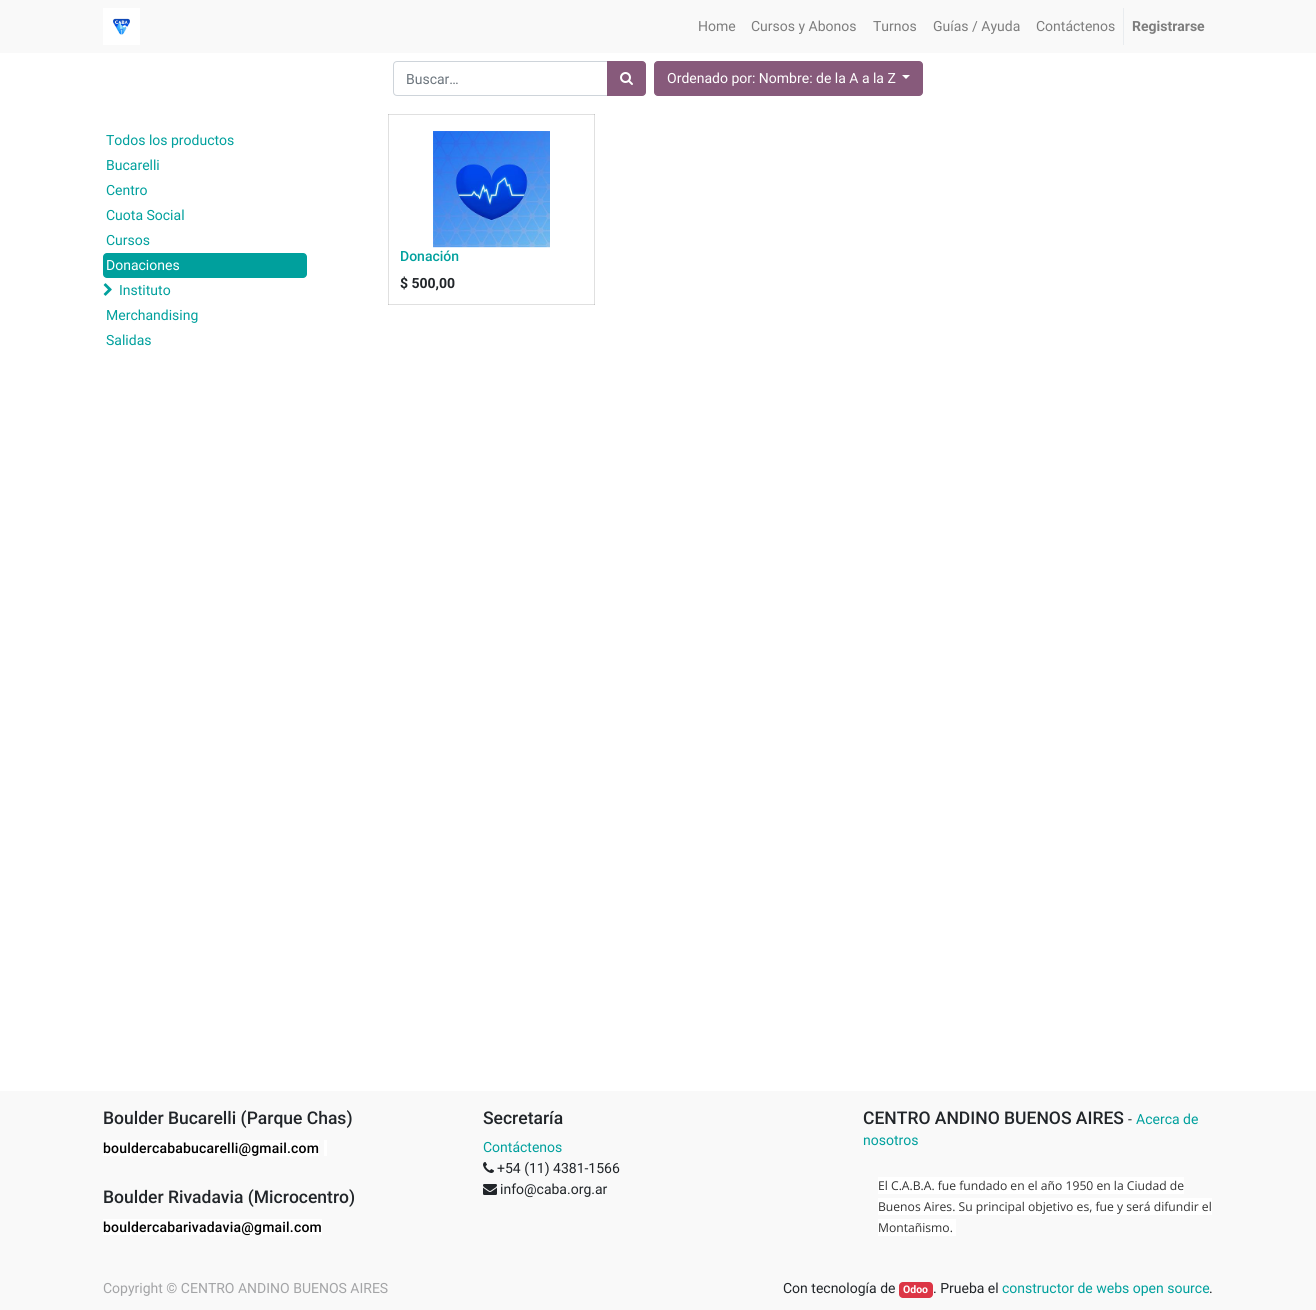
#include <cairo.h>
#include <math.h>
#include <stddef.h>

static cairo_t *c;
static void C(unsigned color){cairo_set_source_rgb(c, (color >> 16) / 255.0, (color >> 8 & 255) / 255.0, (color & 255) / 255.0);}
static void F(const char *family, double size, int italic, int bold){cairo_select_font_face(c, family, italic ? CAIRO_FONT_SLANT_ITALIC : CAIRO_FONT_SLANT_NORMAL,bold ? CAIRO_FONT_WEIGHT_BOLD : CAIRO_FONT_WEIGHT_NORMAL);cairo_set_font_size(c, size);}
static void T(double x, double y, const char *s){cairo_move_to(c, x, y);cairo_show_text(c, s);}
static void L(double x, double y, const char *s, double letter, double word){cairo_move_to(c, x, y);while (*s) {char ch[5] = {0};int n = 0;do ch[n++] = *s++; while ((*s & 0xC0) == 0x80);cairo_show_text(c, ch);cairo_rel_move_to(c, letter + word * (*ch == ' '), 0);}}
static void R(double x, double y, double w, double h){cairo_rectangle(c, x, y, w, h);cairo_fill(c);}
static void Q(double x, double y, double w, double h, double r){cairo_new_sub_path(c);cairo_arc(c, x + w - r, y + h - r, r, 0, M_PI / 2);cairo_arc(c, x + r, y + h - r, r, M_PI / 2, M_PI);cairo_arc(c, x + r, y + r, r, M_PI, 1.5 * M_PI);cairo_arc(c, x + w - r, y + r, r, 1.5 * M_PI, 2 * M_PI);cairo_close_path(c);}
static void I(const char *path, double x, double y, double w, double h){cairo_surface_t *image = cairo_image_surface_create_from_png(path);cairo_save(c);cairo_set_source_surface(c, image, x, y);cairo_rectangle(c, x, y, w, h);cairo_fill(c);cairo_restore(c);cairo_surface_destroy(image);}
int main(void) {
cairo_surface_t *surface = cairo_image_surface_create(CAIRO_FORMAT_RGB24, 1316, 1310);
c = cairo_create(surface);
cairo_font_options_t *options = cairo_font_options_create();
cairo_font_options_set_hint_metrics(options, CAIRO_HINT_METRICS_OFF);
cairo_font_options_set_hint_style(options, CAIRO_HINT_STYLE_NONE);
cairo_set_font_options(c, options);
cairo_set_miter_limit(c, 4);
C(0xffffff);
cairo_paint(c);
C(0xe0e0e0);
R(388,114,1,191);
R(388,304,207,1);
C(0xc7c7c7);
R(388,304,1,1);
C(0xe0e0e0);
R(594,114,1,191);
C(0xc7c7c7);
R(594,304,1,1);
C(0xf9f9f9);
R(0,0,1316,53);
I("1.png",103,8,37,37);
F("Roboto",14,0,0);
C(0x7d7d7d);
T(698,31,"Home");
T(751,31,"Cursos y Abonos");
T(873,31,"Turnos");
T(933,31,"Guías / Ayuda");
T(1036,31,"Contáctenos");
C(0xe9ecef);
R(1123,8,1,37);
F("Roboto",14,0,1);
C(0x7d7d7d);
T(1132,31,"Registrarse");
cairo_new_path(c);
cairo_move_to(c,397,61.5);
cairo_line_to(c,607.5,61.5);
cairo_line_to(c,607.5,95.5);
cairo_line_to(c,397,95.5);
cairo_curve_to(c,395,95.5,393.5,94,393.5,92);
cairo_line_to(c,393.5,65);
cairo_curve_to(c,393.5,63,395,61.5,397,61.5);
cairo_close_path(c);
C(0xced4da);
cairo_set_line_width(c,1);
cairo_stroke(c);
F("Roboto",14,0,0);
C(0x6c757d);
T(406,84,"Buscar…");
C(0x875a7b);
cairo_new_path(c);
cairo_move_to(c,607.5,61.5);
cairo_line_to(c,642,61.5);
cairo_curve_to(c,644,61.5,645.5,63,645.5,65);
cairo_line_to(c,645.5,92);
cairo_curve_to(c,645.5,94,644,95.5,642,95.5);
cairo_line_to(c,607.5,95.5);
cairo_close_path(c);
cairo_fill_preserve(c);
cairo_stroke(c);
I("2.png",620,72,13,13);
Q(654.5,61.5,268,34,3.5);
cairo_fill_preserve(c);
cairo_stroke(c);
C(0xffffff);
T(667,83,"Ordenado por: Nombre: de la A a la Z");
cairo_new_path(c);
cairo_move_to(c,902,75);
cairo_line_to(c,910,75);
cairo_line_to(c,906,79);
cairo_close_path(c);
cairo_fill(c);
C(0x00a09d);
T(106,145,"Todos los productos");
T(106,170,"Bucarelli");
T(106,195,"Centro");
T(106,220,"Cuota Social");
T(106,245,"Cursos");
Q(103,253,204,25,4);
cairo_fill(c);
C(0xffffff);
T(106,270,"Donaciones");
I("3.png",103,283,9,13);
C(0x00a09d);
T(119,295,"Instituto");
T(106,320,"Merchandising");
T(106,345,"Salidas");
C(0xe0e0e0);
R(388,114,207,1);
C(0xc7c7c7);
R(388,114,1,1);
R(594,114,1,1);
I("4.png",433,131,117,117);
cairo_set_source_rgba(c,1,1,1,0.75);
R(433,247,117,1);
cairo_set_source_rgba(c,1,1,1,0.2);
R(433,247,117,1);
F("Roboto Medium",14,0,0);
C(0x00a09d);
T(400,261,"Donación");
F("Roboto",14,0,1);
C(0x212529);
T(400,288,"$ 500,00");
C(0xf9f9f9);
R(0,1091,1316,219);
F("Roboto Medium",17.5,0,0);
C(0x212529);
T(103,1124,"Boulder Bucarelli (Parque Chas)");
C(0xffffff);
R(103,1140,216,16);
F("Roboto Medium",14,0,0);
C(0x000000);
L(103,1153,"bouldercababucarelli@gmail.com",.2,0);
C(0xffffff);
R(324,1140,3,16);
F("Roboto Medium",17.5,0,0);
C(0x212529);
T(103,1203,"Boulder Rivadavia (Microcentro)");
C(0xffffff);
R(103,1219,219,16);
F("Roboto Medium",14,0,0);
C(0x000000);
L(103,1232,"bouldercabarivadavia@gmail.com",.2,0);
F("Roboto Medium",17.5,0,0);
C(0x212529);
T(483,1124,"Secretaría");
F("Roboto",14,0,0);
C(0x00a09d);
T(483,1152,"Contáctenos");
I("5.png",483,1162,11,11);
C(0x212529);
T(497,1173,"+54 (11) 4381-1566");
I("6.png",483,1184,14,11);
T(500,1194,"info@caba.org.ar");
F("Roboto Medium",17.5,0,0);
T(863,1124,"CENTRO ANDINO BUENOS AIRES");
F("Roboto",14,0,0);
T(1128,1124,"-");
C(0x00a09d);
T(1136,1124,"Acerca de");
T(863,1145,"nosotros");
C(0xffffff);
R(878,1177,306,17);
F("Open Sans",12.15,0,0);
C(0x333333);
T(878,1190,"El C.A.B.A. fue fundado en el año 1950 en la Ciudad de");
C(0xffffff);
R(878,1198,334,17);
C(0x333333);
T(878,1211,"Buenos Aires. Su principal objetivo es, fue y será difundir el");
C(0xffffff);
R(878,1219,78,17);
C(0x333333);
T(878,1232,"Montañismo.");
F("Roboto",14,0,0);
C(0xa3a4a6);
T(103,1293,"Copyright © CENTRO ANDINO BUENOS AIRES");
C(0x212529);
T(783,1293,"Con tecnología de");
C(0xdc3545);
Q(899,1282,34,16,4);
cairo_fill(c);
F("Roboto",10.5,0,1);
C(0xffffff);
T(903,1293,"Odoo");
F("Roboto",14,0,0);
C(0x212529);
T(933,1293,". Prueba el");
C(0x00a09d);
T(1002,1293,"constructor de webs open source");
C(0x212529);
T(1209,1293,".");
cairo_surface_write_to_png(surface, "o.png");
cairo_font_options_destroy(options);
cairo_destroy(c);
cairo_surface_destroy(surface);
return 0;
}
